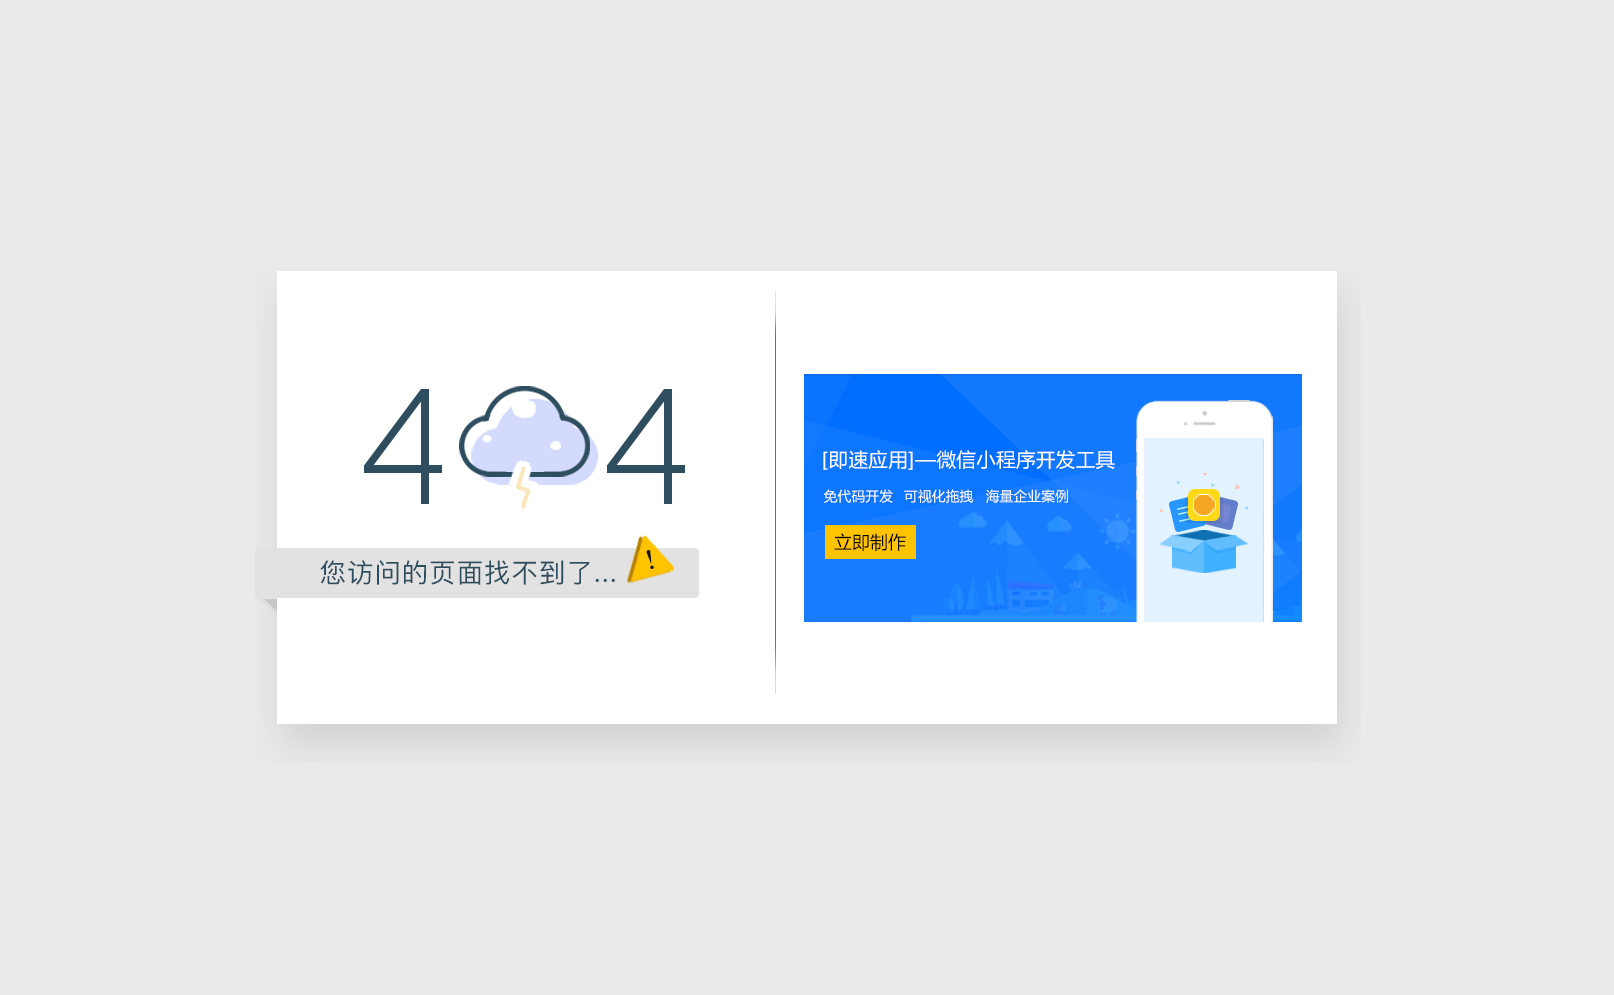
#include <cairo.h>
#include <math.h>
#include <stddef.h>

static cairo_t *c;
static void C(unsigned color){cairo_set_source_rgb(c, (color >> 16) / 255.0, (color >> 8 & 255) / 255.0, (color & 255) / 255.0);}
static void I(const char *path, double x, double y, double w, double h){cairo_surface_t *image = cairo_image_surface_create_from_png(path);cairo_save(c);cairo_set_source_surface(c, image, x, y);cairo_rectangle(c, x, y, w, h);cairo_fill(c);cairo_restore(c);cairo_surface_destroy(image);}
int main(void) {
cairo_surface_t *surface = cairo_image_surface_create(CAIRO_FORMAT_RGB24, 1614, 995);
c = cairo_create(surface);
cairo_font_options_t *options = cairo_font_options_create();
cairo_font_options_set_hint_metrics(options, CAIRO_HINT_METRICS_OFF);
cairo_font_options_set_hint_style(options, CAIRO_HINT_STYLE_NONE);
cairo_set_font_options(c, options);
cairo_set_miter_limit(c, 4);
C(0xeaeaea);
cairo_paint(c);
I("1.png",255,271,1106,492);
cairo_surface_write_to_png(surface, "o.png");
cairo_font_options_destroy(options);
cairo_destroy(c);
cairo_surface_destroy(surface);
return 0;
}
